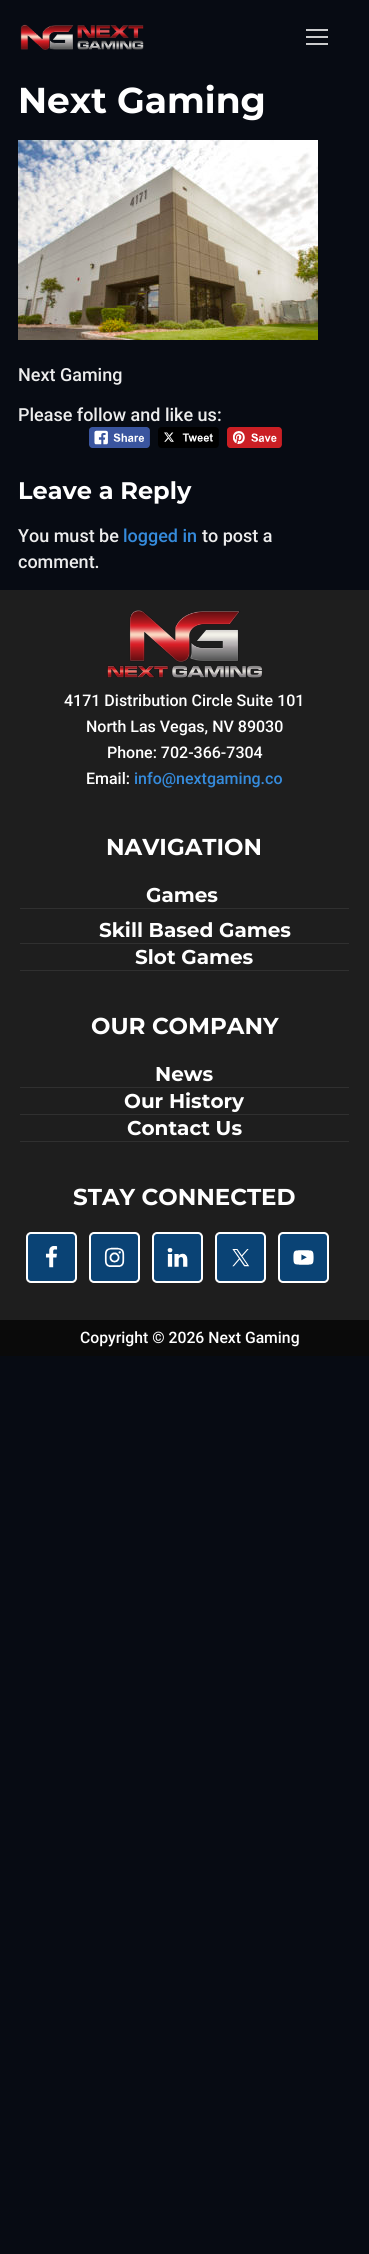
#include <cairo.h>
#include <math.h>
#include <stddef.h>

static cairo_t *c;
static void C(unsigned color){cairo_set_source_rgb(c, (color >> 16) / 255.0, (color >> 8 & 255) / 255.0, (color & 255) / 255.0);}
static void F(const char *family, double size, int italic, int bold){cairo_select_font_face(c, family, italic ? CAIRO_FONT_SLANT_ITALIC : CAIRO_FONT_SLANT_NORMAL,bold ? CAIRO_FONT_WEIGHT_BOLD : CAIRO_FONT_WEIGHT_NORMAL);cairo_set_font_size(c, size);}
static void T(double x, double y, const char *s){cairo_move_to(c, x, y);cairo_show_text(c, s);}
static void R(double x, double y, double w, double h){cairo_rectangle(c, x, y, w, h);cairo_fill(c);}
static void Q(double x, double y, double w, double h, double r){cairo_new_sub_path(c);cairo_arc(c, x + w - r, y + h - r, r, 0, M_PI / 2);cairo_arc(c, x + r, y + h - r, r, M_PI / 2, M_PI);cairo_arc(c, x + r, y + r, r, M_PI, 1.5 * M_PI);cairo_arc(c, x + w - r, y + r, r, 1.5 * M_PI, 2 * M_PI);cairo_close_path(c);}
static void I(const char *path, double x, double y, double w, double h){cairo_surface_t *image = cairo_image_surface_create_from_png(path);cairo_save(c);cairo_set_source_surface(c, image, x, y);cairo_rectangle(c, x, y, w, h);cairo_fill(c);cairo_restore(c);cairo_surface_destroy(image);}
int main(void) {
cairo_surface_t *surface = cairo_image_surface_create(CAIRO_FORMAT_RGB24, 369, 2254);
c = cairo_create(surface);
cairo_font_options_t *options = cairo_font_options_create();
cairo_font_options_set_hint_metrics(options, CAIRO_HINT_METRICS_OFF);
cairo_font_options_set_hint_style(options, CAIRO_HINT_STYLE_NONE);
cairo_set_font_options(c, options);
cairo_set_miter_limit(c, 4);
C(0x070b13);
cairo_paint(c);
I("1.png",20,24,124,26);
C(0xcbcccd);
R(306,36,22,2);
R(306,29,22,2);
R(306,43,22,2);
F("Montserrat Thin",36,0,0);
C(0xffffff);
T(18,113,"Next Gaming");
I("2.png",18,140,300,200);
F("Roboto Medium",18,0,0);
C(0xededed);
T(18,381,"Next Gaming");
T(18,421,"Please follow and like us:");
I("3.png",89,427,61,21);
I("4.png",158,427,61,21);
I("5.png",227,427,55,21);
F("Montserrat Thin",24,0,0);
C(0xffffff);
T(18,499,"Leave a Reply");
F("Roboto Medium",18,0,0);
C(0xededed);
T(18,542,"You must be");
C(0x358bdc);
T(123,542,"logged in");
C(0xededed);
T(202,542,"to post a");
T(18,568,"comment.");
C(0x1e1e1e);
R(0,590,369,730);
I("6.png",107,610,156,68);
F("Roboto Medium",16,0,0);
C(0xffffff);
T(64,706,"4171 Distribution Circle Suite 101");
T(86,732,"North Las Vegas, NV 89030");
T(107,758,"Phone: 702-366-7304");
T(86,784,"Email:");
C(0x358bdc);
T(134,784,"info@nextgaming.co");
F("Montserrat Thin",23,0,0);
C(0xffffff);
T(106,855,"NAVIGATION");
C(0x303030);
R(20,908,329,1);
F("Montserrat Thin",20,0,0);
C(0xffffff);
T(146,902,"Games");
C(0x303030);
R(20,943,329,1);
C(0xffffff);
T(99,937,"Skill Based Games");
C(0x303030);
R(20,970,329,1);
C(0xffffff);
T(135,964,"Slot Games");
F("Montserrat Thin",23,0,0);
T(91,1034,"OUR COMPANY");
C(0x303030);
R(20,1087,329,1);
F("Montserrat Thin",20,0,0);
C(0xffffff);
T(155,1081,"News");
C(0x303030);
R(20,1114,329,1);
C(0xffffff);
T(124,1108,"Our History");
C(0x303030);
R(20,1141,329,1);
C(0xffffff);
T(127,1135,"Contact Us");
F("Montserrat Thin",23,0,0);
T(73,1205,"STAY CONNECTED");
C(0x0a4375);
Q(27,1233,49,49,4);
cairo_fill_preserve(c);
C(0xffffff);
cairo_stroke(c);
I("7.png",45,1246,13,22);
C(0x0a4375);
Q(90,1233,49,49,4);
cairo_fill_preserve(c);
C(0xffffff);
cairo_stroke(c);
I("8.png",104,1247,21,20);
C(0x0a4375);
Q(153,1233,49,49,4);
cairo_fill_preserve(c);
C(0xffffff);
cairo_stroke(c);
I("9.png",167,1248,21,19);
C(0x0a4375);
Q(216,1233,49,49,4);
cairo_fill_preserve(c);
C(0xffffff);
cairo_stroke(c);
I("10.png",232,1249,18,18);
C(0x0a4375);
Q(279,1233,49,49,4);
cairo_fill_preserve(c);
C(0xffffff);
cairo_stroke(c);
I("11.png",293,1250,21,15);
C(0x0a0a0a);
R(0,1320,369,36);
F("Roboto Medium",15.75,0,0);
C(0xffffff);
T(80,1343,"Copyright © 2026 Next Gaming");
cairo_surface_write_to_png(surface, "o.png");
cairo_font_options_destroy(options);
cairo_destroy(c);
cairo_surface_destroy(surface);
return 0;
}
